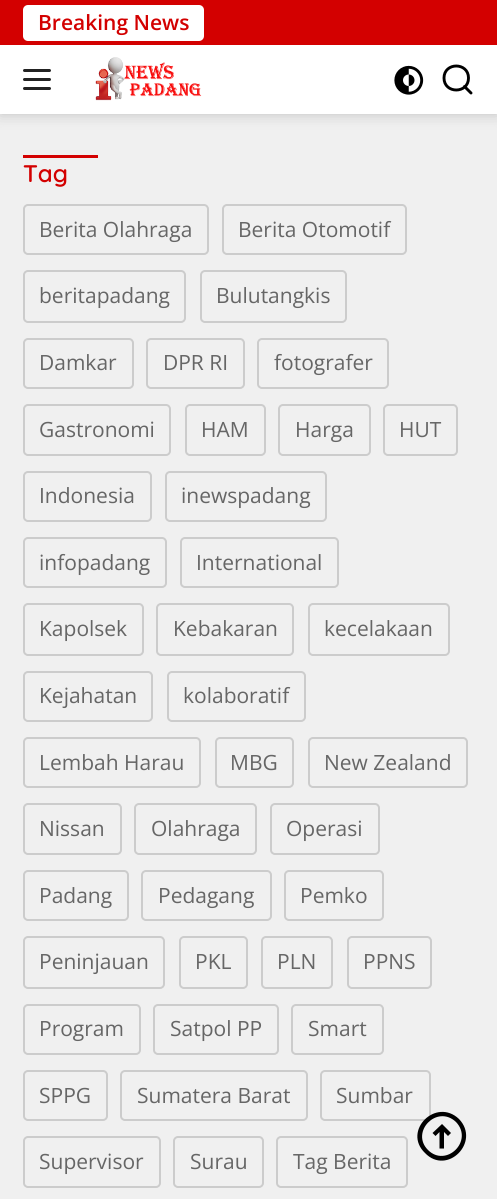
#include <cairo.h>
#include <math.h>
#include <stddef.h>

static cairo_t *c;
static void C(unsigned color){cairo_set_source_rgb(c, (color >> 16) / 255.0, (color >> 8 & 255) / 255.0, (color & 255) / 255.0);}
static void F(const char *family, double size, int italic, int bold){cairo_select_font_face(c, family, italic ? CAIRO_FONT_SLANT_ITALIC : CAIRO_FONT_SLANT_NORMAL,bold ? CAIRO_FONT_WEIGHT_BOLD : CAIRO_FONT_WEIGHT_NORMAL);cairo_set_font_size(c, size);}
static void T(double x, double y, const char *s){cairo_move_to(c, x, y);cairo_show_text(c, s);}
static void R(double x, double y, double w, double h){cairo_rectangle(c, x, y, w, h);cairo_fill(c);}
static void Q(double x, double y, double w, double h, double r){cairo_new_sub_path(c);cairo_arc(c, x + w - r, y + h - r, r, 0, M_PI / 2);cairo_arc(c, x + r, y + h - r, r, M_PI / 2, M_PI);cairo_arc(c, x + r, y + r, r, M_PI, 1.5 * M_PI);cairo_arc(c, x + w - r, y + r, r, 1.5 * M_PI, 2 * M_PI);cairo_close_path(c);}
static void S(double x, double y, double w, double h, double r, double blur, double alpha){cairo_push_group_with_content(c, CAIRO_CONTENT_ALPHA);cairo_set_operator(c, CAIRO_OPERATOR_SOURCE);for (int i = 15; i >= -15 && fmin(w, h) + blur * i / 3 > 0; i -= 2) {double e = blur * i / 6;cairo_set_source_rgba(c, 0, 0, 0, alpha * erfc((i - 1) / 8.5) / 2);Q(x - e, y - e, w + 2 * e, h + 2 * e, fmax(0, fmin(r + e + blur * .6, fmin(w, h) / 2 + e)));cairo_fill(c);}cairo_pattern_t *soft = cairo_pop_group(c);cairo_mask(c, soft);cairo_pattern_destroy(soft);}
static void I(const char *path, double x, double y, double w, double h){cairo_surface_t *image = cairo_image_surface_create_from_png(path);cairo_save(c);cairo_set_source_surface(c, image, x, y);cairo_rectangle(c, x, y, w, h);cairo_fill(c);cairo_restore(c);cairo_surface_destroy(image);}
int main(void) {
cairo_surface_t *surface = cairo_image_surface_create(CAIRO_FORMAT_RGB24, 497, 1199);
c = cairo_create(surface);
cairo_font_options_t *options = cairo_font_options_create();
cairo_font_options_set_hint_metrics(options, CAIRO_HINT_METRICS_OFF);
cairo_font_options_set_hint_style(options, CAIRO_HINT_STYLE_NONE);
cairo_set_font_options(c, options);
cairo_set_miter_limit(c, 4);
C(0xf0f0f0);
cairo_paint(c);
C(0x000000);
S(0,0,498,114,0,7.5,.2);
C(0xffffff);
R(0,45,497,69);
C(0xd30000);
R(0,0,497,45);
C(0xffffff);
Q(23,5,181,36,5);
cairo_fill(c);
F("Open Sans SemiBold",21,0,0);
C(0xd30000);
T(38,30,"Breaking News");
C(0x222222);
Q(23,69,28,3,1.5);
cairo_fill(c);
Q(23,78,28,3,1.5);
cairo_fill(c);
Q(23,87,28,3,1.5);
cairo_fill(c);
I("1.png",95,57,107,44);
I("2.png",394,65,30,30);
cairo_new_path(c);
cairo_move_to(c,471,93);
cairo_line_to(c,464.5,86.5);
cairo_move_to(c,468.5,78);
cairo_curve_to(c,468.5,94,444,94,444,78);
cairo_curve_to(c,444,62,468.5,62,468.5,78);
cairo_close_path(c);
C(0x000000);
cairo_set_line_width(c,2.9);
cairo_set_line_cap(c,CAIRO_LINE_CAP_ROUND);
cairo_stroke(c);
C(0xd30000);
R(23,155,75,3);
F("Quicksand SemiBold",24,0,0);
T(23,182,"Tag");
Q(24,205,184,49,4);
C(0xcccccc);
cairo_set_line_width(c,2);
cairo_set_line_cap(c,CAIRO_LINE_CAP_BUTT);
cairo_stroke(c);
F("Open Sans",21,0,0);
C(0x666666);
T(39,237,"Berita Olahraga");
Q(223,205,183,49,4);
C(0xcccccc);
cairo_stroke(c);
C(0x666666);
T(238,237,"Berita Otomotif");
Q(24,271,161,51,4);
C(0xcccccc);
cairo_stroke(c);
C(0x666666);
T(39,303,"beritapadang");
Q(201,271,145,51,4);
C(0xcccccc);
cairo_stroke(c);
C(0x666666);
T(216,303,"Bulutangkis");
Q(24,339,109,49,4);
C(0xcccccc);
cairo_stroke(c);
C(0x666666);
T(39,370,"Damkar");
Q(147,339,97,49,4);
C(0xcccccc);
cairo_stroke(c);
C(0x666666);
T(163,370,"DPR RI");
Q(258,339,130,49,4);
C(0xcccccc);
cairo_stroke(c);
C(0x666666);
T(274,370,"fotografer");
Q(24,405,146,50,4);
C(0xcccccc);
cairo_stroke(c);
C(0x666666);
T(39,437,"Gastronomi");
Q(186,405,79,50,4);
C(0xcccccc);
cairo_stroke(c);
C(0x666666);
T(201,437,"HAM");
Q(279,405,91,50,4);
C(0xcccccc);
cairo_stroke(c);
C(0x666666);
T(295,437,"Harga");
Q(384,405,73,50,4);
C(0xcccccc);
cairo_stroke(c);
C(0x666666);
T(399,437,"HUT");
Q(24,472,127,49,4);
C(0xcccccc);
cairo_stroke(c);
C(0x666666);
T(39,503,"Indonesia");
Q(166,472,160,49,4);
C(0xcccccc);
cairo_stroke(c);
C(0x666666);
T(181,503,"inewspadang");
Q(24,538,142,49,4);
C(0xcccccc);
cairo_stroke(c);
C(0x666666);
T(39,570,"infopadang");
Q(181,538,157,49,4);
C(0xcccccc);
cairo_stroke(c);
C(0x666666);
T(196,570,"International");
Q(24,604,119,51,4);
C(0xcccccc);
cairo_stroke(c);
C(0x666666);
T(39,636,"Kapolsek");
Q(157,604,136,51,4);
C(0xcccccc);
cairo_stroke(c);
C(0x666666);
T(173,636,"Kebakaran");
Q(309,604,140,51,4);
C(0xcccccc);
cairo_stroke(c);
C(0x666666);
T(324,636,"kecelakaan");
Q(24,672,128,49,4);
C(0xcccccc);
cairo_stroke(c);
C(0x666666);
T(39,703,"Kejahatan");
Q(168,672,137,49,4);
C(0xcccccc);
cairo_stroke(c);
C(0x666666);
T(183,703,"kolaboratif");
Q(24,738,176,49,4);
C(0xcccccc);
cairo_stroke(c);
C(0x666666);
T(39,770,"Lembah Harau");
Q(216,738,77,49,4);
C(0xcccccc);
cairo_stroke(c);
C(0x666666);
T(230,770,"MBG");
Q(309,738,158,49,4);
C(0xcccccc);
cairo_stroke(c);
C(0x666666);
T(324,770,"New Zealand");
Q(24,804,97,50,4);
C(0xcccccc);
cairo_stroke(c);
C(0x666666);
T(39,836,"Nissan");
Q(135,804,121,50,4);
C(0xcccccc);
cairo_stroke(c);
C(0x666666);
T(151,836,"Olahraga");
Q(271,804,108,50,4);
C(0xcccccc);
cairo_stroke(c);
C(0x666666);
T(286,836,"Operasi");
Q(24,871,104,49,4);
C(0xcccccc);
cairo_stroke(c);
C(0x666666);
T(39,903,"Padang");
Q(142,871,129,49,4);
C(0xcccccc);
cairo_stroke(c);
C(0x666666);
T(158,903,"Pedagang");
Q(285,871,98,49,4);
C(0xcccccc);
cairo_stroke(c);
C(0x666666);
T(300,903,"Pemko");
Q(24,937,140,51,4);
C(0xcccccc);
cairo_stroke(c);
C(0x666666);
T(39,969,"Peninjauan");
Q(180,937,67,51,4);
C(0xcccccc);
cairo_stroke(c);
C(0x666666);
T(195,969,"PKL");
Q(262,937,70,51,4);
C(0xcccccc);
cairo_stroke(c);
C(0x666666);
T(277,969,"PLN");
Q(348,937,83,51,4);
C(0xcccccc);
cairo_stroke(c);
C(0x666666);
T(363,969,"PPNS");
Q(24,1005,116,49,4);
C(0xcccccc);
cairo_stroke(c);
C(0x666666);
T(39,1036,"Program");
Q(154,1005,124,49,4);
C(0xcccccc);
cairo_stroke(c);
C(0x666666);
T(170,1036,"Satpol PP");
Q(292,1005,91,49,4);
C(0xcccccc);
cairo_stroke(c);
C(0x666666);
T(308,1036,"Smart");
Q(24,1071,83,49,4);
C(0xcccccc);
cairo_stroke(c);
C(0x666666);
T(39,1103,"SPPG");
Q(121,1071,186,49,4);
C(0xcccccc);
cairo_stroke(c);
C(0x666666);
T(137,1103,"Sumatera Barat");
Q(321,1071,109,49,4);
C(0xcccccc);
cairo_stroke(c);
C(0x666666);
T(336,1103,"Sumbar");
Q(24,1137,136,50,4);
C(0xcccccc);
cairo_stroke(c);
C(0x666666);
T(39,1169,"Supervisor");
Q(174,1137,89,50,4);
C(0xcccccc);
cairo_stroke(c);
C(0x666666);
T(190,1169,"Surau");
Q(277,1137,130,50,4);
C(0xcccccc);
cairo_stroke(c);
C(0x666666);
T(293,1169,"Tag Berita");
C(0x000000);
cairo_new_path(c);
cairo_move_to(c,448,1136);
cairo_line_to(c,451,1133);
cairo_line_to(c,442,1124);
cairo_line_to(c,432.5,1133);
cairo_line_to(c,435.5,1136);
cairo_line_to(c,439.5,1132);
cairo_line_to(c,439.5,1148.5);
cairo_line_to(c,444,1148.5);
cairo_line_to(c,444,1132);
cairo_close_path(c);
cairo_fill(c);
cairo_set_fill_rule(c,CAIRO_FILL_RULE_EVEN_ODD);
cairo_new_path(c);
cairo_move_to(c,459,1119);
cairo_curve_to(c,436,1097,402,1131,425,1153);
cairo_curve_to(c,447,1176,481,1142,459,1119);
cairo_close_path(c);
cairo_move_to(c,456,1122);
cairo_curve_to(c,437,1104,410,1132,428,1150);
cairo_curve_to(c,446,1168,474,1141,456,1122);
cairo_close_path(c);
cairo_fill(c);
cairo_surface_write_to_png(surface, "o.png");
cairo_font_options_destroy(options);
cairo_destroy(c);
cairo_surface_destroy(surface);
return 0;
}
